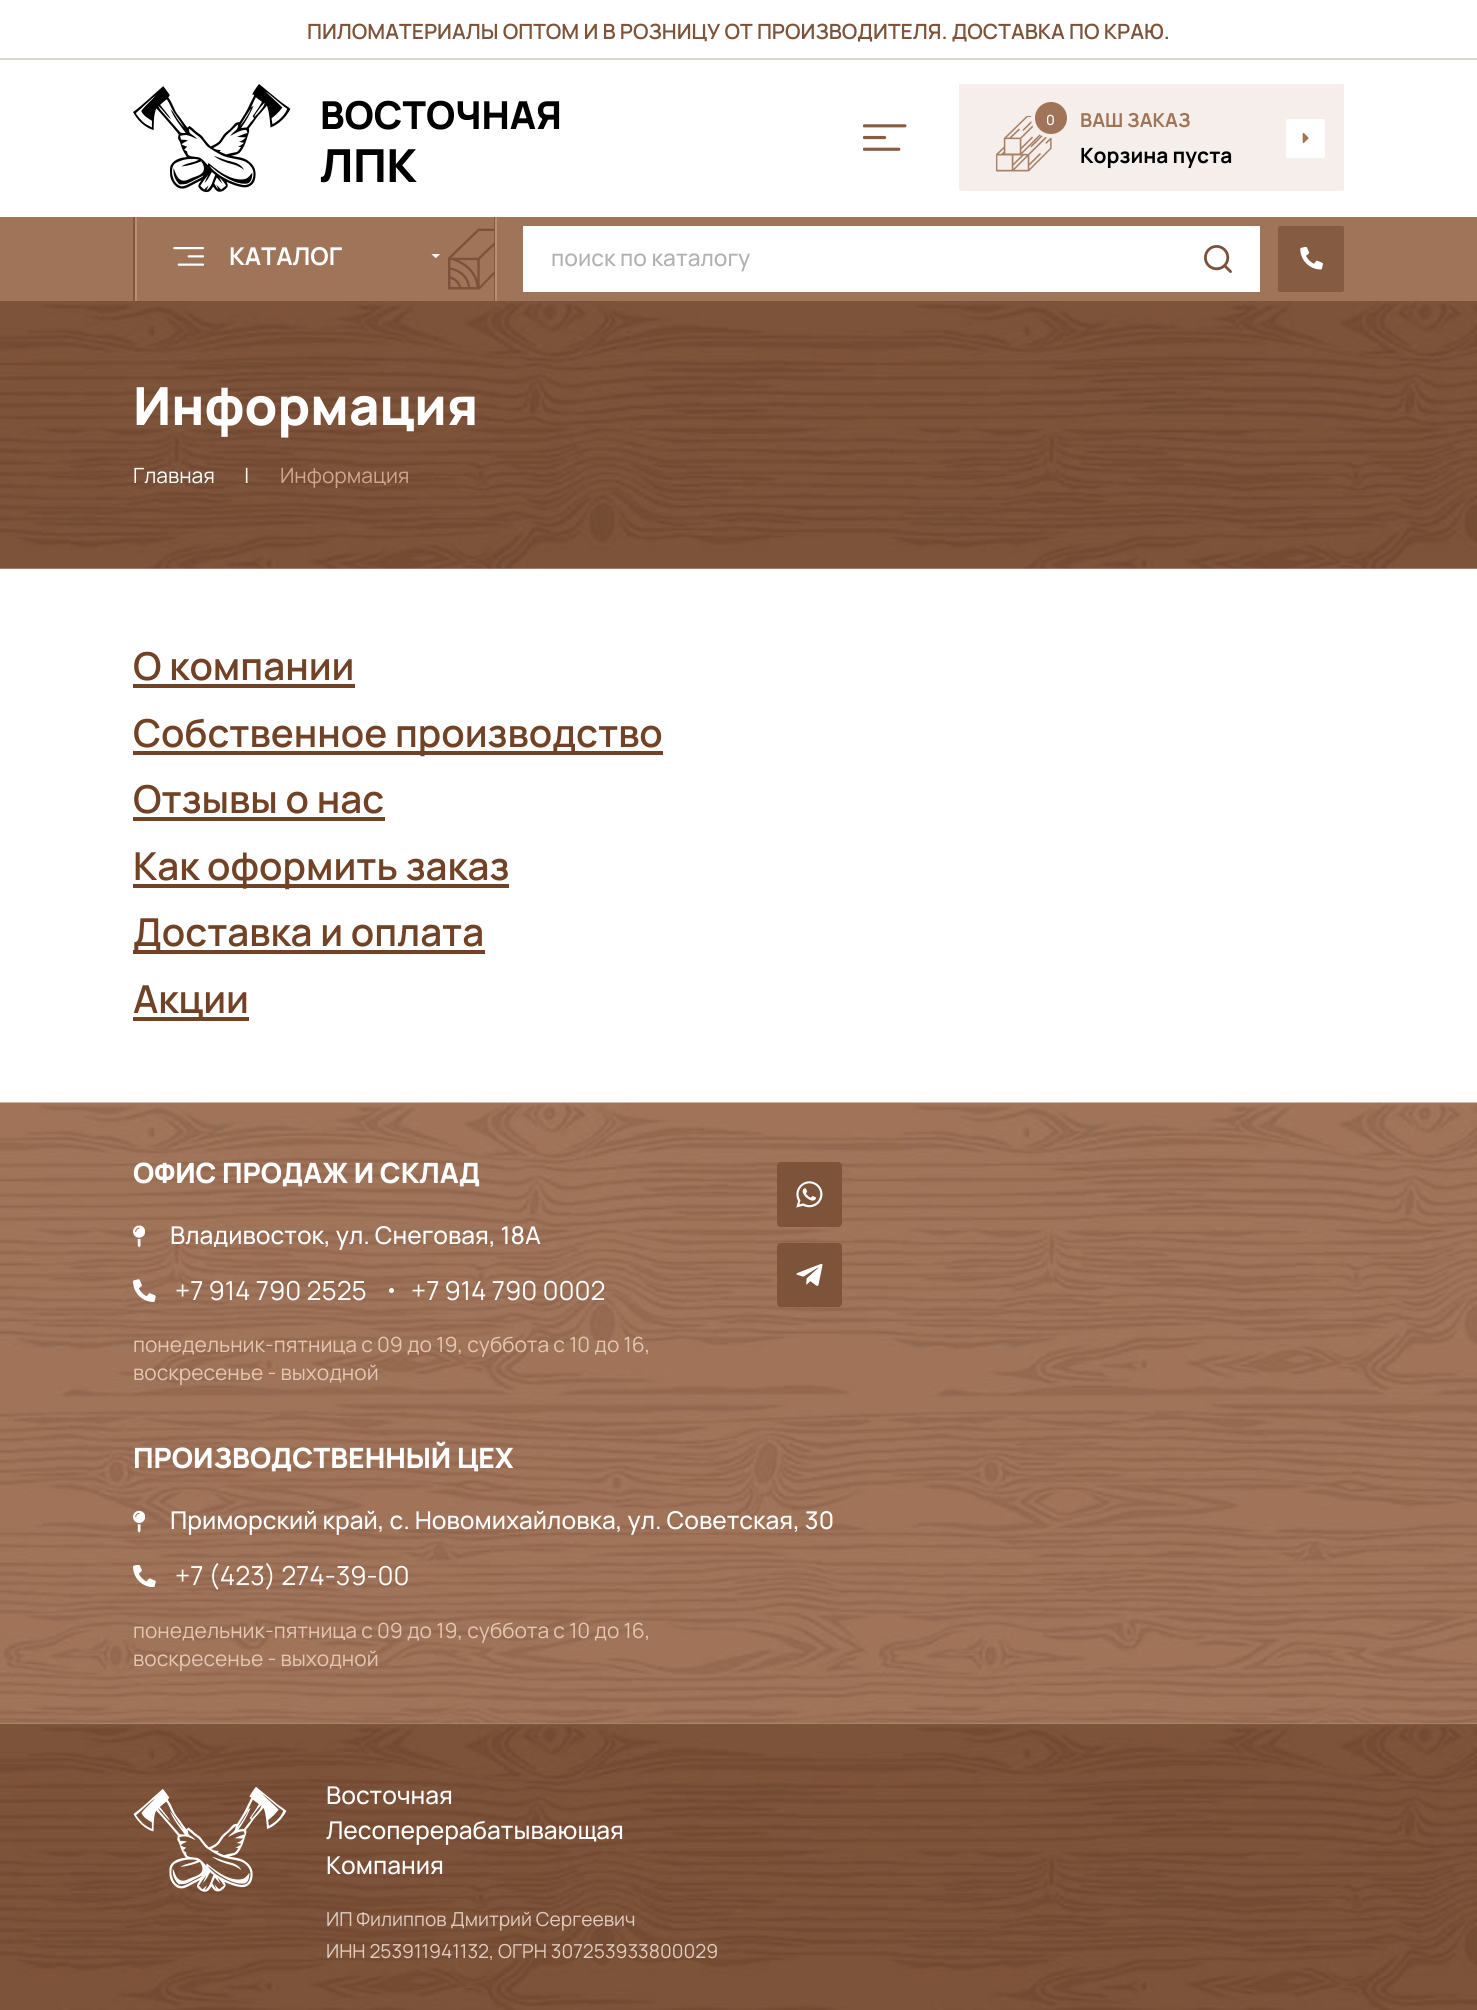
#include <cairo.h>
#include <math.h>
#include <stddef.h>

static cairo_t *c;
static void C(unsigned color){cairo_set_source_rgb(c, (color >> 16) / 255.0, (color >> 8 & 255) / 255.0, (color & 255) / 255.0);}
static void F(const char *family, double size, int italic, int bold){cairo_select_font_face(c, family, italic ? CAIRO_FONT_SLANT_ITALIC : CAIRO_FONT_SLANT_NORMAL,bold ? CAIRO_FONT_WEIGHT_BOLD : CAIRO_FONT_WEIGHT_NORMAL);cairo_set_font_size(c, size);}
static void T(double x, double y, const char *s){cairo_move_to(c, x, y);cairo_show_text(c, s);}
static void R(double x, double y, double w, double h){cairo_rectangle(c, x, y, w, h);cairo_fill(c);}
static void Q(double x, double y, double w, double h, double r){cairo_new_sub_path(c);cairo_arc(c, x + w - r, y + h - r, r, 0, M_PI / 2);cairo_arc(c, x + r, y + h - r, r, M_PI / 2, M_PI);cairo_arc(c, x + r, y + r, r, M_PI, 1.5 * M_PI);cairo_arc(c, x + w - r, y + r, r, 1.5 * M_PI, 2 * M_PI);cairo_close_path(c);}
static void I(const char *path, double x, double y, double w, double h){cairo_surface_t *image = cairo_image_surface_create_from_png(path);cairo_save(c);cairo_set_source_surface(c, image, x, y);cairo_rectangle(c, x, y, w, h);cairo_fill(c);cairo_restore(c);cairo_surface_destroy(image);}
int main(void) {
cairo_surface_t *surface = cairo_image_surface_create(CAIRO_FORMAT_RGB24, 1477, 2010);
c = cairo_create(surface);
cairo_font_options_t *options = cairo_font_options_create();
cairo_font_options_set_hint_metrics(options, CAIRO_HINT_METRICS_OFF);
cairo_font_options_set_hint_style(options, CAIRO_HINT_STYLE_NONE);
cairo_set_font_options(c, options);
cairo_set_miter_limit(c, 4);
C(0xffffff);
cairo_paint(c);
C(0xddd5d0);
R(0,58,1477,2);
F("Manrope SemiBold",21,0,0);
C(0x7d5339);
T(307,39,"ПИЛОМАТЕРИАЛЫ ОПТОМ И В РОЗНИЦУ ОТ ПРОИЗВОДИТЕЛЯ. ДОСТАВКА ПО КРАЮ.");
I("1.png",133,84,158,109);
F("Manrope ExtraBold",38.5,0,0);
C(0x000000);
T(320,129,"ВОСТОЧНАЯ");
F("Manrope ExtraBold",45.5,0,0);
T(320,182,"ЛПК");
I("2.png",863,124,44,27);
C(0xf6eeea);
Q(960,85,383,105,1);
cairo_fill_preserve(c);
cairo_stroke(c);
I("3.png",996,116,56,56);
C(0xa07459);
cairo_arc(c,1051,118,18,0,2 * M_PI);
cairo_fill_preserve(c);
C(0xf6eeea);
cairo_set_line_width(c,4);
cairo_stroke(c);
F("Manrope Medium",14,0,0);
C(0xffffff);
T(1046,125,"0");
F("Manrope",19.25,0,1);
C(0xa07459);
T(1080,127,"ВАШ ЗАКАЗ");
F("Manrope",21,0,1);
C(0x000000);
T(1080,163,"Корзина пуста");
C(0xffffff);
Q(1286,119,39,39,2);
cairo_fill(c);
I("4.png",1302,132,7,12);
C(0xa07459);
R(0,217,1477,84);
C(0x84583d);
R(133,217,2,84);
C(0xb88e75);
R(135,217,2,84);
I("5.png",173,247,31,19);
F("Manrope",24.5,0,1);
C(0xffffff);
T(229,265,"КАТАЛОГ");
I("6.png",431,254,9,4);
I("7.png",448,228,46,62);
C(0x84583d);
R(494,217,1,84);
C(0xb88e75);
R(495,217,2,84);
C(0xffffff);
R(523,226,737,66);
F("Manrope Medium",22.75,0,0);
C(0xb1b1b1);
T(551,266,"поиск по каталогу");
I("8.png",1204,245,28,28);
C(0x855b42);
Q(1278,226,66,66,2);
cairo_fill(c);
I("9.png",1300,247,23,23);
I("10.png",0,301,1477,268);
F("Manrope ExtraBold",52.5,0,0);
C(0xffffff);
T(133,425,"Информация");
F("Manrope",21,0,0);
T(133,483,"Главная");
T(244,483,"|");
C(0xcfa78e);
T(280,483,"Информация");
F("Manrope SemiBold",38.5,0,0);
C(0x714226);
T(133,680,"О компании");
R(133,684,222,4);
R(133,751,530,4);
T(133,747,"Собственное производство");
T(133,813,"Отзывы о нас");
R(133,817,252,4);
R(133,884,376,4);
T(133,880,"Как оформить заказ");
R(133,950,352,4);
T(133,946,"Доставка и оплата");
R(133,1017,116,4);
T(133,1013,"Акции");
I("11.png",0,1102,1477,622);
F("Manrope ExtraBold",28,0,0);
C(0xffffff);
T(133,1183,"ОФИС ПРОДАЖ И СКЛАД");
I("12.png",133,1225,12,23);
F("Manrope Medium",24.5,0,0);
T(170,1244,"Владивосток, ул. Снеговая, 18А");
I("13.png",133,1279,23,23);
F("Manrope",26.25,0,0);
T(175,1300,"+7 914 790 2525");
cairo_new_path(c);
cairo_arc(c,391.5,1290.5,2.5,0,2 * M_PI);
cairo_fill(c);
T(411,1300,"+7 914 790 0002");
F("Manrope",21,0,0);
C(0xe5c6b3);
T(133,1352,"понедельник-пятница с 09 до 19, суббота с 10 до 16,");
T(133,1380,"воскресенье - выходной");
C(0x7d5339);
Q(777,1162,65,65,4);
cairo_fill(c);
I("14.png",796,1181,27,27);
Q(777,1243,65,64,4);
cairo_fill(c);
I("15.png",796,1263,27,23);
F("Manrope ExtraBold",28,0,0);
C(0xffffff);
T(133,1468,"ПРОИЗВОДСТВЕННЫЙ ЦЕХ");
I("16.png",133,1510,12,23);
F("Manrope Medium",24.5,0,0);
T(170,1529,"Приморский край, с. Новомихайловка, ул. Советская, 30");
I("17.png",133,1565,23,22);
F("Manrope",26.25,0,0);
T(175,1585,"+7 (423) 274-39-00");
F("Manrope",21,0,0);
C(0xe5c6b3);
T(133,1638,"понедельник-пятница с 09 до 19, суббота с 10 до 16,");
T(133,1666,"воскресенье - выходной");
I("18.png",0,1723,1477,287);
I("19.png",133,1787,154,105);
F("Manrope Medium",24.5,0,0);
C(0xffffff);
T(326,1804,"Восточная");
T(326,1839,"Лесоперерабатывающая");
T(326,1874,"Компания");
F("Manrope",19.25,0,0);
C(0xe1ccbf);
T(326,1926,"ИП Филиппов Дмитрий Сергеевич");
T(326,1958,"ИНН 253911941132, ОГРН 307253933800029");
cairo_surface_write_to_png(surface, "o.png");
cairo_font_options_destroy(options);
cairo_destroy(c);
cairo_surface_destroy(surface);
return 0;
}
